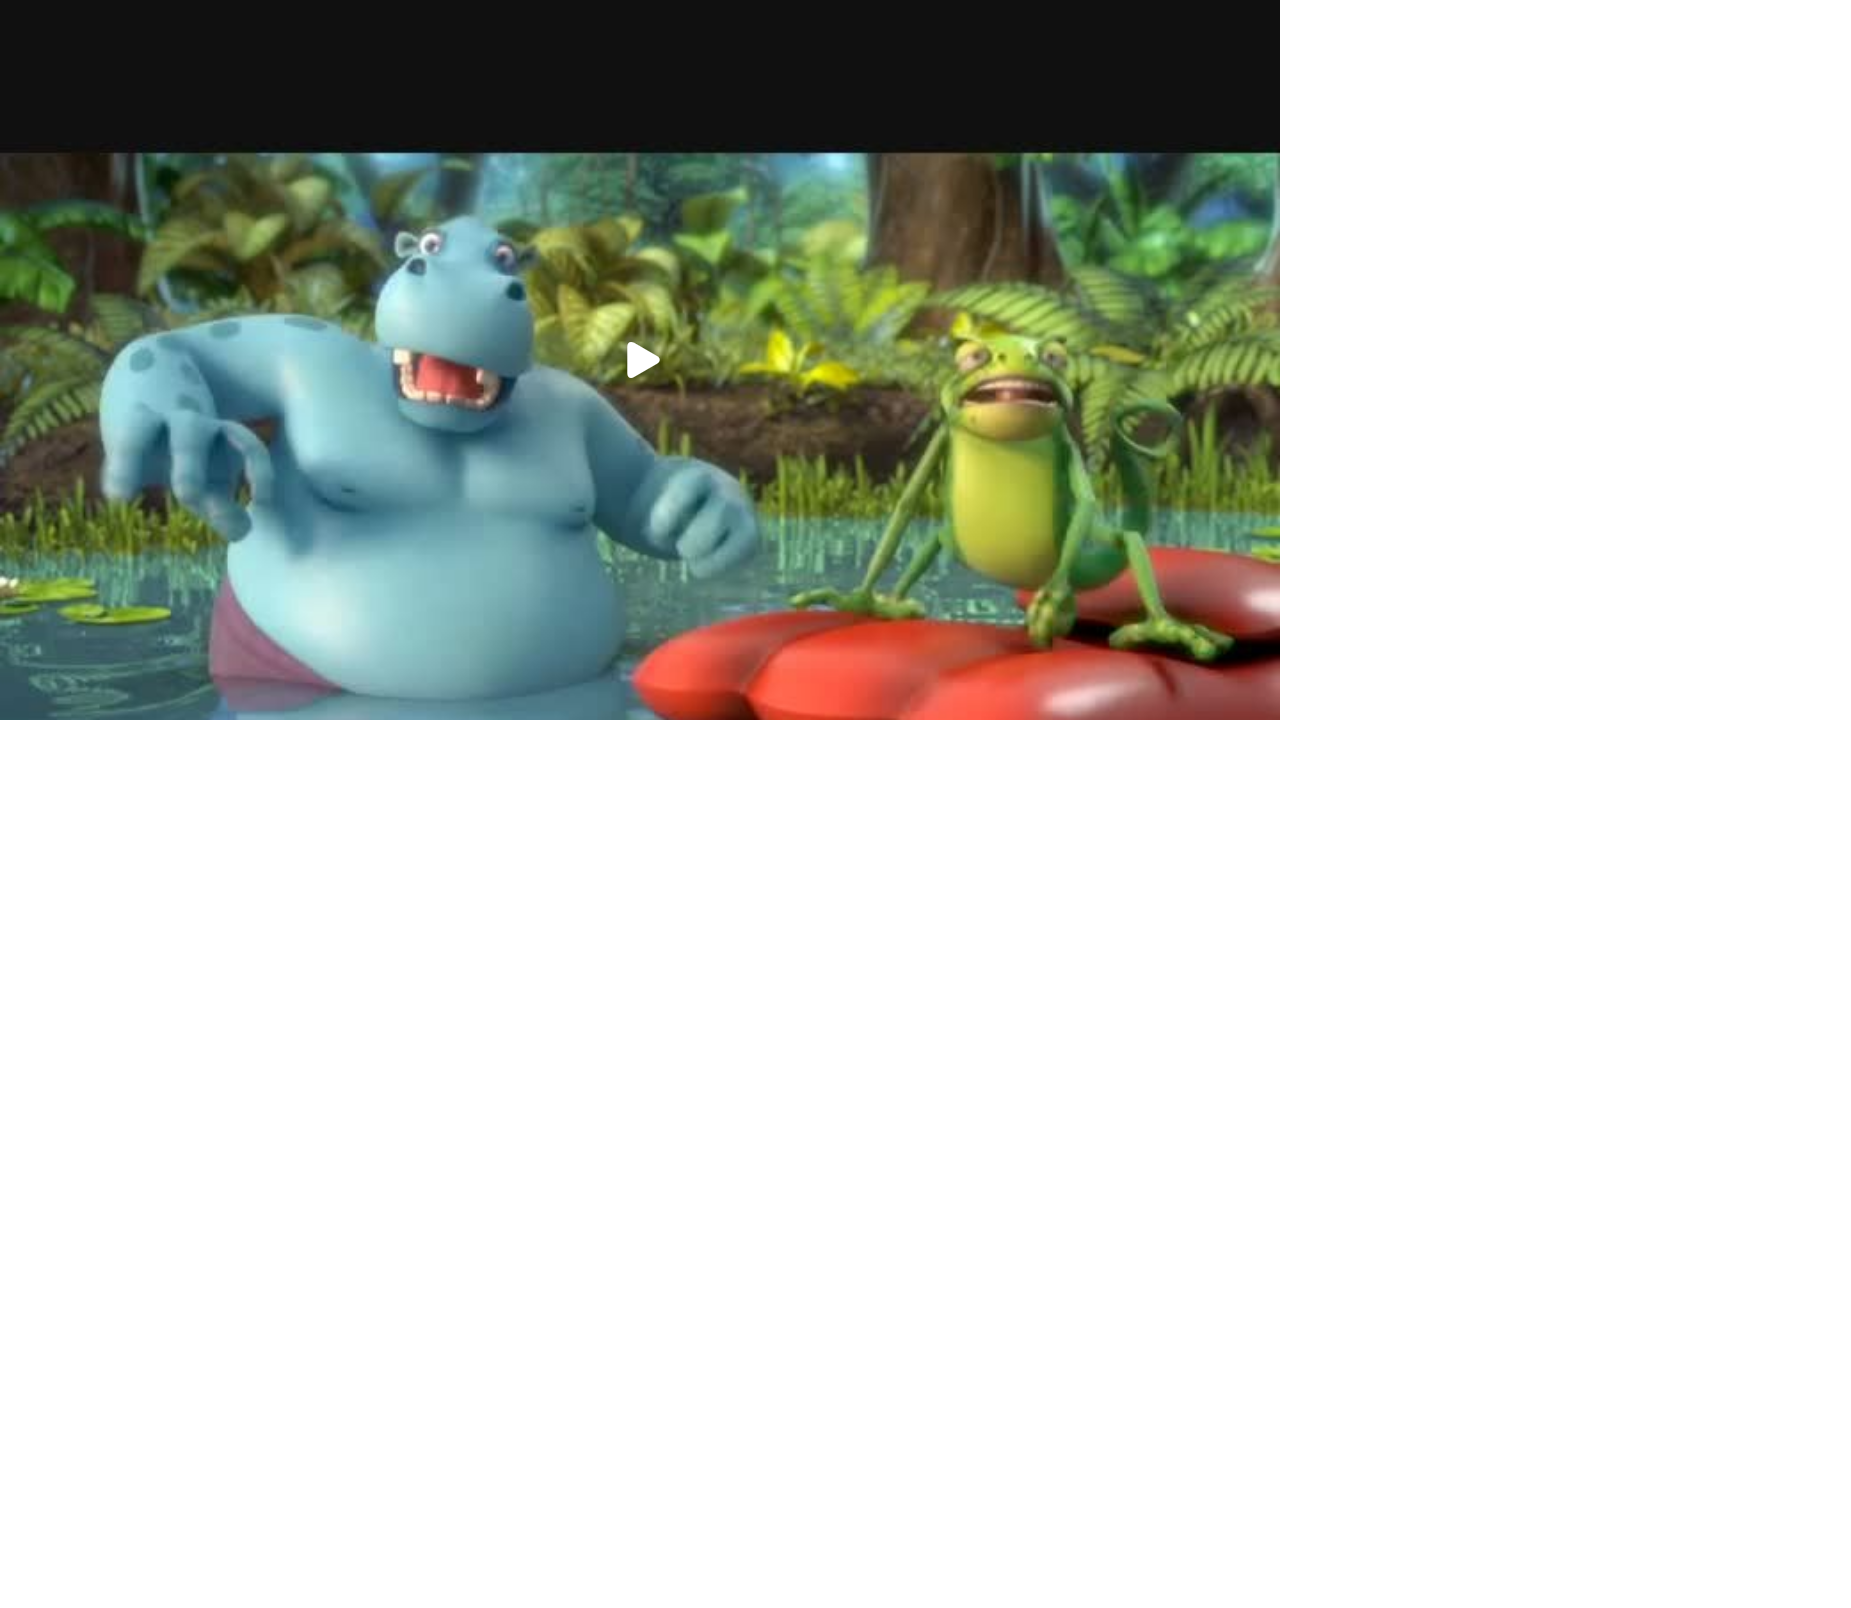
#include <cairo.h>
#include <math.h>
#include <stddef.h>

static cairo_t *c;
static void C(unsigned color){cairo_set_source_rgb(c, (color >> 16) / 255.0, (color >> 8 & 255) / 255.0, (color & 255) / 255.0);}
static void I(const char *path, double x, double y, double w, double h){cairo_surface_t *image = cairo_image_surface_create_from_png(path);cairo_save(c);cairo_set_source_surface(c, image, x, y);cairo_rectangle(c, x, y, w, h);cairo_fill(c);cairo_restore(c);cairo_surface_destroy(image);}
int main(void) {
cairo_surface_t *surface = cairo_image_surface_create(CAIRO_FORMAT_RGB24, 1851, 1608);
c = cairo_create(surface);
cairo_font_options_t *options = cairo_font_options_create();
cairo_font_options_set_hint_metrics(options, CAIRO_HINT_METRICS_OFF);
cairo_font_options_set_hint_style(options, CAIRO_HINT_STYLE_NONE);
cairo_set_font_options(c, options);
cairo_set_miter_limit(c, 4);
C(0xffffff);
cairo_paint(c);
I("1.png",0,0,1280,720);
I("2.png",622,338,41,43);
cairo_surface_write_to_png(surface, "o.png");
cairo_font_options_destroy(options);
cairo_destroy(c);
cairo_surface_destroy(surface);
return 0;
}
